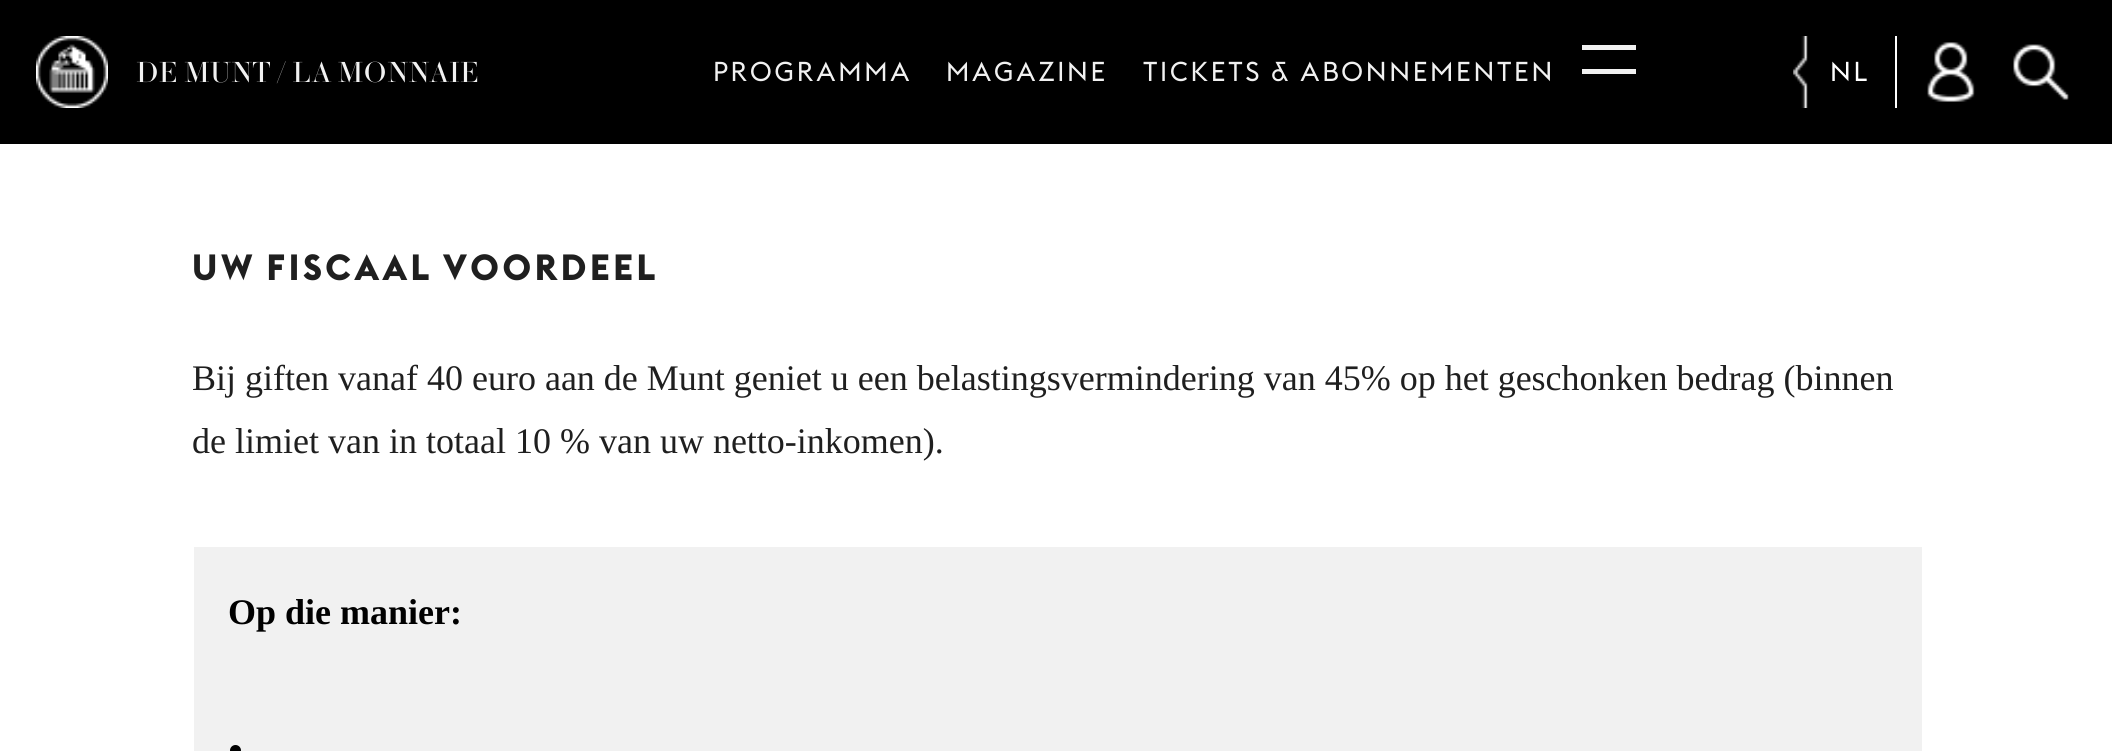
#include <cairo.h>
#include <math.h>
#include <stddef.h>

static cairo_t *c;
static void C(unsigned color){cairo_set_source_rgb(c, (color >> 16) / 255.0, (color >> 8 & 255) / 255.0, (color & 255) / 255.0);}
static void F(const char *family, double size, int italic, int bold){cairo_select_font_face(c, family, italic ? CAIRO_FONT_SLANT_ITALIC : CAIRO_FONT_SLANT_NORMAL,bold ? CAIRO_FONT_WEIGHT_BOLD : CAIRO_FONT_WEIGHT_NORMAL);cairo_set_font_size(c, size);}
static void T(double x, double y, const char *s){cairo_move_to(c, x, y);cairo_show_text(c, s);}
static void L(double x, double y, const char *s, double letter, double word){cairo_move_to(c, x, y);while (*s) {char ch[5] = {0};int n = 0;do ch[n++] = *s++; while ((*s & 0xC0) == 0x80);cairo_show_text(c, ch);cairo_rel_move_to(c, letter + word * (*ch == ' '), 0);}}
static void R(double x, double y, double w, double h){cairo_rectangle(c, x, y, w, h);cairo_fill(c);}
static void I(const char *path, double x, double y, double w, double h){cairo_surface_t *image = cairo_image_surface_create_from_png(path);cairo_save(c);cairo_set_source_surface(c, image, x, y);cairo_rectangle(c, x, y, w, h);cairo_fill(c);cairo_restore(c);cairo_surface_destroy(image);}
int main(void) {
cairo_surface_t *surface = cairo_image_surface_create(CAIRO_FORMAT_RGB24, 2112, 751);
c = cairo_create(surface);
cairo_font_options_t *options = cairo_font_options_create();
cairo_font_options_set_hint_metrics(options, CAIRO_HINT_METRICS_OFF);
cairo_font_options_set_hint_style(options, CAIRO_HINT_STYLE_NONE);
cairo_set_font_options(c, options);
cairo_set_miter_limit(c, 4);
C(0xffffff);
cairo_paint(c);
C(0x000000);
R(0,0,2112,144);
I("1.png",36,36,72,72);
F("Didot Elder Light",29.25,0,0);
C(0xf1f1f1);
L(136,82,"DE MUNT / LA MONNAIE",0,-.5);
F("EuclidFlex",27,0,0);
L(713,81,"PROGRAMMA",2.7,0);
L(946,81,"MAGAZINE",2.7,0);
L(1143,81,"TICKETS & ABONNEMENTEN",2.7,0);
R(1582,45,54,5);
R(1582,69,54,5);
C(0xffffff);
R(1895,36,2,72);
I("2.png",1793,36,15,72);
L(1830,81,"NL",2.7,0);
I("3.png",1927,42,48,60);
I("4.png",2013,44,56,56);
F("EuclidFlex",36,0,1);
C(0x1f1f1f);
L(192,280,"UW FISCAAL VOORDEEL",3.6,-1);
F("Liberation Serif",36,0,0);
T(192,390,"Bij giften vanaf 40 euro aan de Munt geniet u een belastingsvermindering van 45% op het geschonken bedrag (binnen");
T(192,453,"de limiet van in totaal 10 % van uw netto-inkomen).");
C(0xf1f1f1);
R(194,547,1728,204);
F("Liberation Serif",36,0,1);
C(0x000000);
T(228,624,"Op die manier:");
cairo_new_path(c);
cairo_arc(c,235.5,750.5,5.5,0,2 * M_PI);
cairo_fill(c);
cairo_surface_write_to_png(surface, "o.png");
cairo_font_options_destroy(options);
cairo_destroy(c);
cairo_surface_destroy(surface);
return 0;
}
